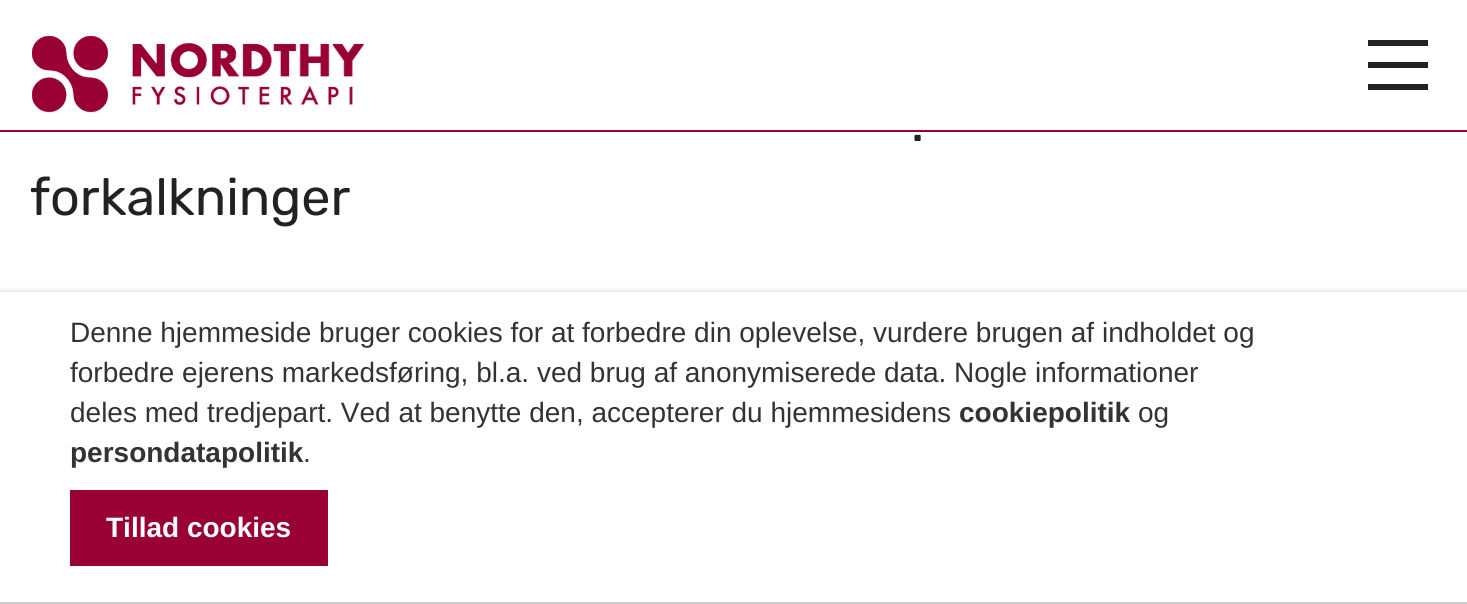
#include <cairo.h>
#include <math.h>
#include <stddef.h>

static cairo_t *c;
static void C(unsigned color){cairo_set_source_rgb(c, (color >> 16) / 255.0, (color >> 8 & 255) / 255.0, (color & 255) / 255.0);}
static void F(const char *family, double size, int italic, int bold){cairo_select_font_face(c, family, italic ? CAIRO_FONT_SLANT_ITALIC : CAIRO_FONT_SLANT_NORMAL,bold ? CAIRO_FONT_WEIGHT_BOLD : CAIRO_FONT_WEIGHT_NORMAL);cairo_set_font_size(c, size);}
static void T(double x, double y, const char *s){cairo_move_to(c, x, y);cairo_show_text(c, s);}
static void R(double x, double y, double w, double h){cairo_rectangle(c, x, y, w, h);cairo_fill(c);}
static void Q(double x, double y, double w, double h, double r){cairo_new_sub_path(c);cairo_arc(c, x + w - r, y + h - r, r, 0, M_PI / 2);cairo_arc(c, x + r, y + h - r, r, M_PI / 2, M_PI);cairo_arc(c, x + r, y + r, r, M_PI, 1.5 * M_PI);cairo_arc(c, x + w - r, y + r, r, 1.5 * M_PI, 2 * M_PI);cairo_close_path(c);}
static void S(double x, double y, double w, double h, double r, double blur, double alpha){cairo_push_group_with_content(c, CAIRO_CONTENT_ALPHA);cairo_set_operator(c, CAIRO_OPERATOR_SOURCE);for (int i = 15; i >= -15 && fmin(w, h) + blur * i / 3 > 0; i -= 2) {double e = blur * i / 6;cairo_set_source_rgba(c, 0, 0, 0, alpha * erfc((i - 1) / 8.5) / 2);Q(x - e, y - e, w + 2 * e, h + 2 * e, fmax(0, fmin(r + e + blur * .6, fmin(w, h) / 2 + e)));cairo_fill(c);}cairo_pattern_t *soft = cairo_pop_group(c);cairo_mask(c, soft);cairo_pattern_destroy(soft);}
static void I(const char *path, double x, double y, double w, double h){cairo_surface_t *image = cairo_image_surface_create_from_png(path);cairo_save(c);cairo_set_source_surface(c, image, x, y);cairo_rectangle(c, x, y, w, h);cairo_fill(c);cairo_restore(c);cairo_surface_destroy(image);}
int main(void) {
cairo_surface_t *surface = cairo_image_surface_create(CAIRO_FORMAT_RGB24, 1467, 604);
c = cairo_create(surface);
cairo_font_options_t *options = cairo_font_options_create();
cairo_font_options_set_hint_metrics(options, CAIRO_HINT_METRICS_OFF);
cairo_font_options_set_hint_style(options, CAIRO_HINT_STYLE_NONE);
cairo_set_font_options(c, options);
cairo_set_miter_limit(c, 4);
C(0xffffff);
cairo_paint(c);
I("1.png",32,36,333,77);
C(0x222222);
R(1368,40,60,6);
R(1368,62,60,6);
R(1368,84,60,6);
C(0x990033);
R(0,130,1467,2);
F("Rubik",52,0,0);
C(0x222222);
T(911,141,".");
T(30,215,"forkalkninger");
C(0xcccccc);
S(0,292,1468,312,0,3,1);
C(0xffffff);
R(0,292,1467,310);
C(0xcccccc);
R(0,602,1467,2);
F("Liberation Sans",28,0,0);
C(0x333333);
T(70,342,"Denne hjemmeside bruger cookies for at forbedre din oplevelse, vurdere brugen af indholdet og");
T(70,382,"forbedre ejerens markedsføring, bl.a. ved brug af anonymiserede data. Nogle informationer");
T(70,422,"deles med tredjepart. Ved at benytte den, accepterer du hjemmesidens");
F("Liberation Sans",28,0,1);
T(959,422,"cookiepolitik");
F("Liberation Sans",28,0,0);
T(1138,422,"og");
F("Liberation Sans",28,0,1);
T(70,462,"persondatapolitik");
F("Liberation Sans",28,0,0);
T(303,462,".");
C(0x990033);
R(70,490,258,76);
F("Liberation Sans",28,0,1);
C(0xffffff);
T(106,537,"Tillad cookies");
cairo_surface_write_to_png(surface, "o.png");
cairo_font_options_destroy(options);
cairo_destroy(c);
cairo_surface_destroy(surface);
return 0;
}
